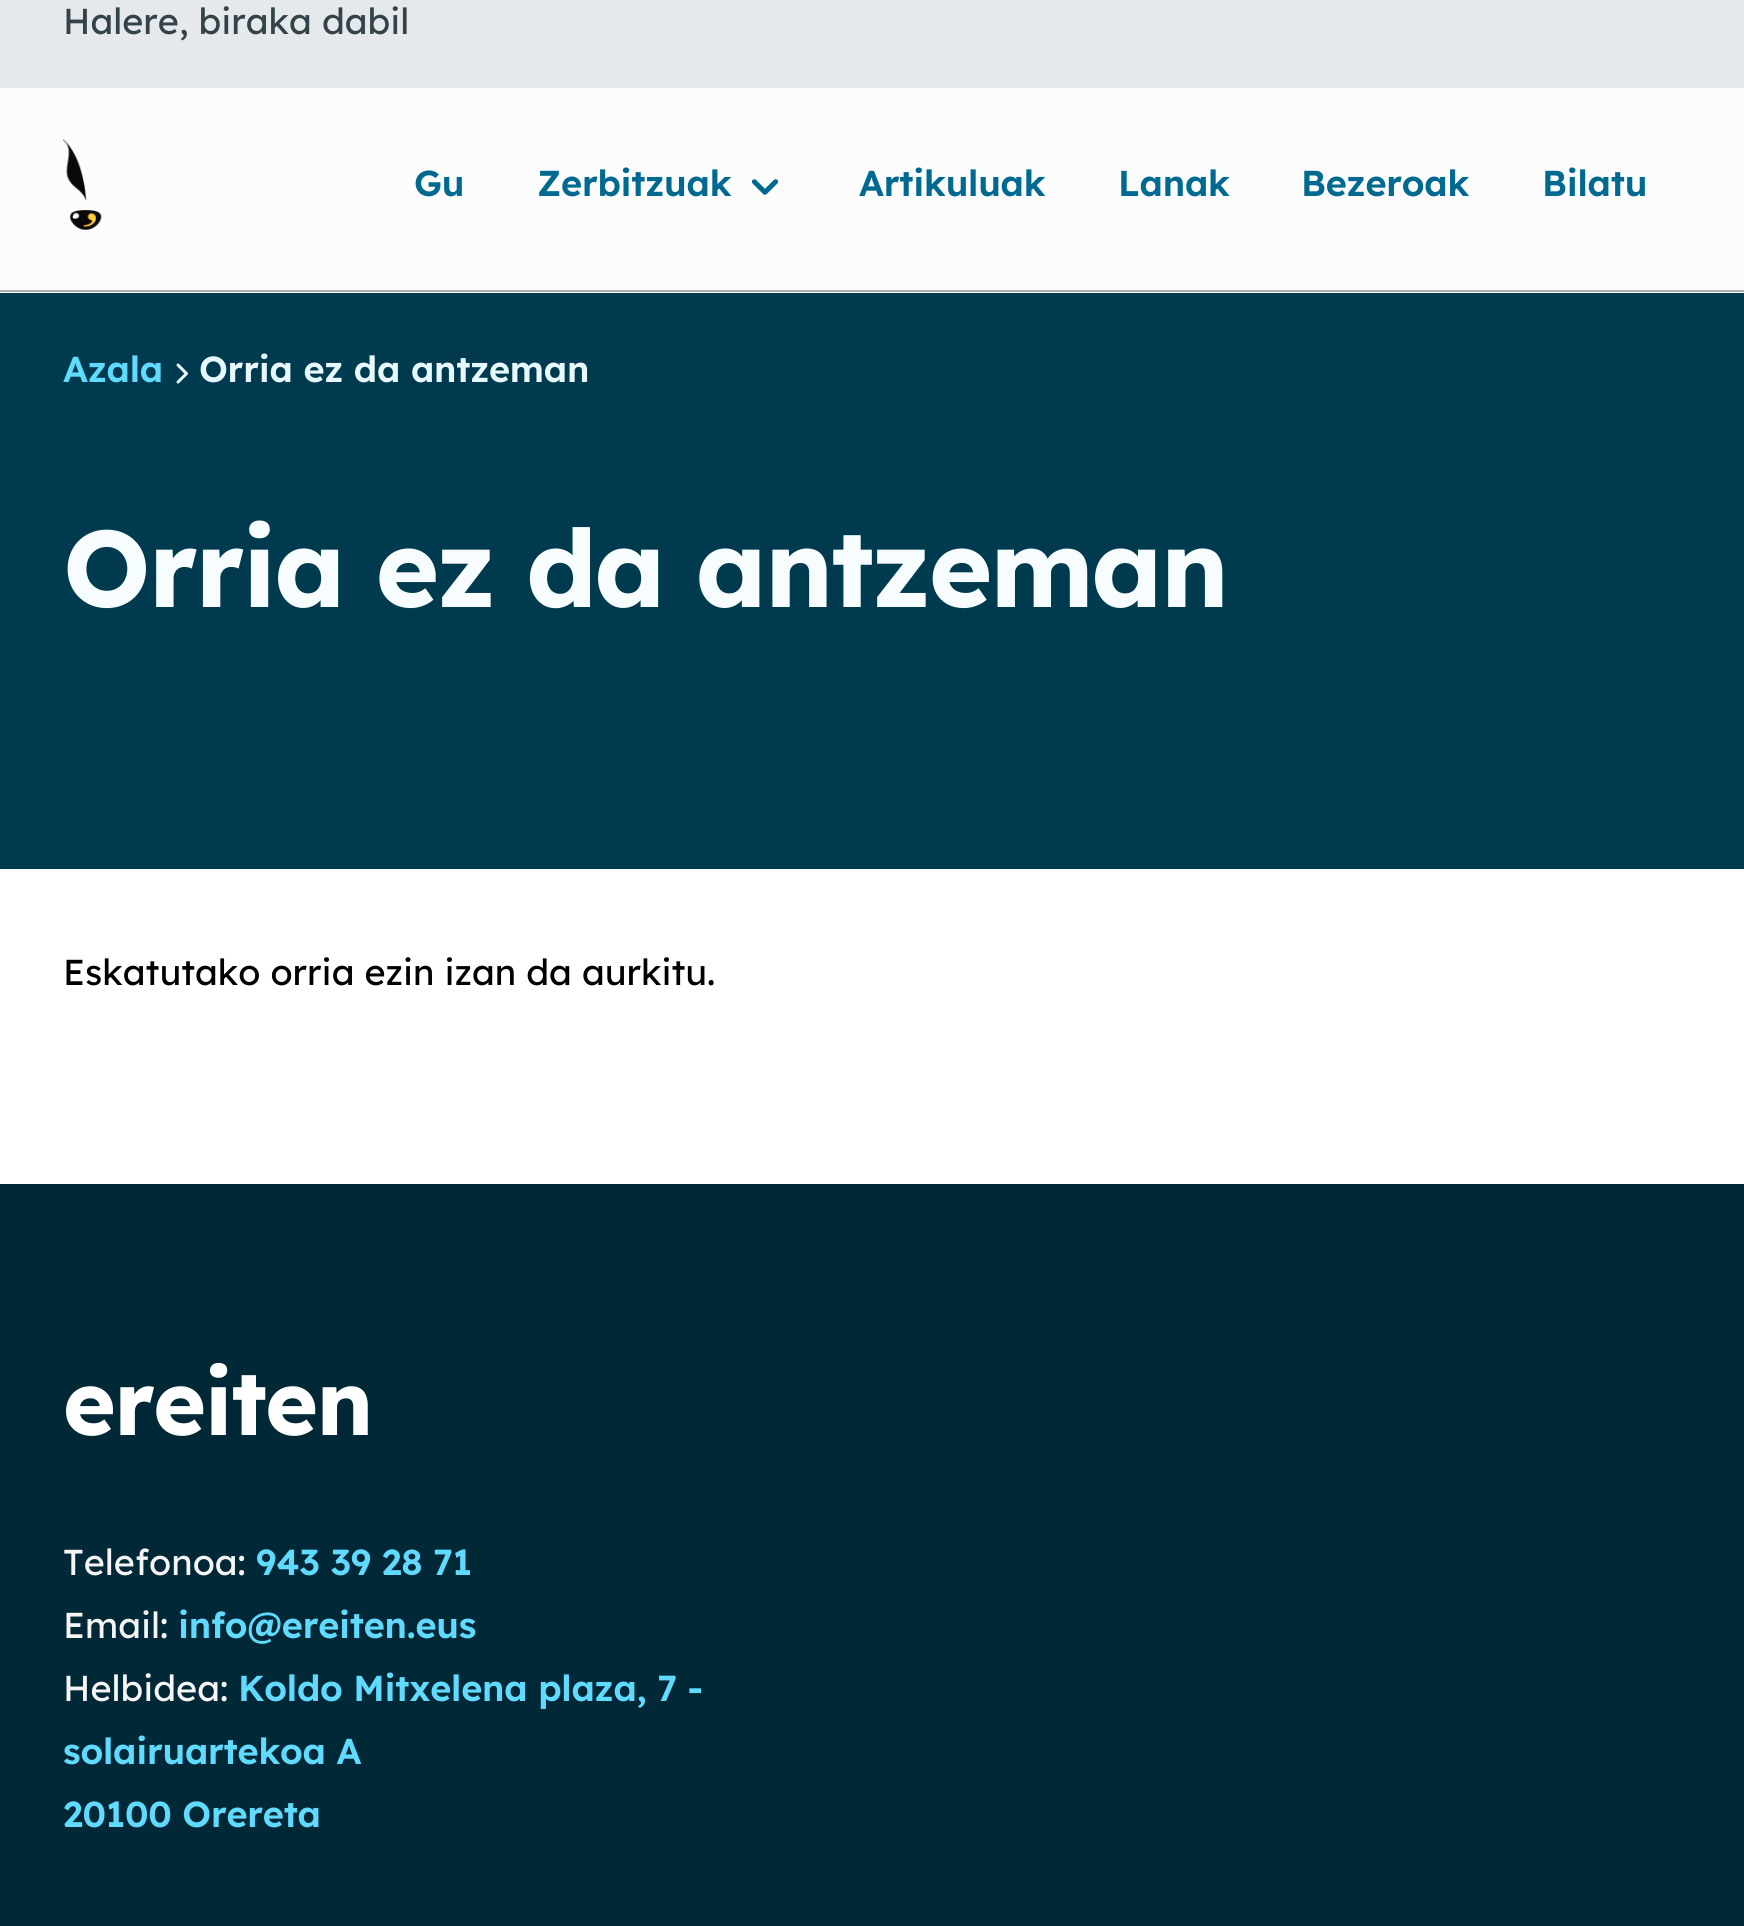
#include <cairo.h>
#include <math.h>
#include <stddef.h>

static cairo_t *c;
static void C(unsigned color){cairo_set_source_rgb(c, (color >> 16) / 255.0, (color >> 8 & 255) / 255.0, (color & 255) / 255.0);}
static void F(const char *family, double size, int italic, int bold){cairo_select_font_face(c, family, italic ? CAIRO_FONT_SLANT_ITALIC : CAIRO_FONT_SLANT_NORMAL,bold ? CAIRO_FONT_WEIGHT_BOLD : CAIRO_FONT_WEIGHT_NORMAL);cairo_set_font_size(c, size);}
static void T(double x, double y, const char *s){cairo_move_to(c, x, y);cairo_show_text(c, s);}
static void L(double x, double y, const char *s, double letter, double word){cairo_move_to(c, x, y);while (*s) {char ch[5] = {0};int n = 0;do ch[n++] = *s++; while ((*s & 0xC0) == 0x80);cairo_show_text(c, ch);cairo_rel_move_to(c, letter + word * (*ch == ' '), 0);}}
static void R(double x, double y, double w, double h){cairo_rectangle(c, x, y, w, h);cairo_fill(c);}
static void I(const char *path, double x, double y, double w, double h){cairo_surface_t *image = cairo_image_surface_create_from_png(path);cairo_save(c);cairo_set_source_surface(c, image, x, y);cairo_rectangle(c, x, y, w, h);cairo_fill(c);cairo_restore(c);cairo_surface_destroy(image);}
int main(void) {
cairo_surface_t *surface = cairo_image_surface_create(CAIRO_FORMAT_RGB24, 1744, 1926);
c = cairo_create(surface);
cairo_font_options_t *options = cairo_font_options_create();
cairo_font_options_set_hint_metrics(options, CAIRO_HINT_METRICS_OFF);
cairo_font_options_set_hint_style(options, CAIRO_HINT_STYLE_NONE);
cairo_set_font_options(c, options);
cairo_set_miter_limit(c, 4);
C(0xffffff);
cairo_paint(c);
C(0xfcfcfd);
R(0,88,1744,205);
C(0xacaeb0);
R(0,290,1744,2);
C(0xe6e9eb);
R(0,0,1744,88);
F("Lexend",36,0,0);
C(0x334349);
T(63,34,"Halere, biraka dabil");
I("1.png",63,139,39,91);
F("Lexend SemiBold",36,0,0);
C(0x00698f);
L(414,196,"Gu",-.25,0);
L(537,196,"Zerbitzuak",-.25,0);
I("2.png",751,179,28,16);
L(859,196,"Artikuluak",-.25,0);
L(1118,196,"Lanak",-.25,0);
L(1301,196,"Bezeroak",-.25,0);
L(1542,196,"Bilatu",-.25,0);
C(0x003a4f);
R(0,293,1744,576);
C(0x61daff);
L(63,382,"Azala",-.25,0);
I("3.png",176,363,12,21);
C(0xe7f9ff);
L(199,382,"Orria ez da antzeman",-.25,0);
F("Lexend",108,0,1);
C(0xf7fdff);
L(63,607,"Orria ez da antzeman",-2.25,0);
F("Lexend",36,0,0);
C(0x000000);
T(63,985,"Eskatutako orria ezin izan da aurkitu.");
C(0x002837);
R(0,1184,1744,742);
F("Lexend",90,0,1);
C(0xffffff);
L(63,1435,"ereiten",-1.75,0);
F("Lexend",36,0,0);
C(0xf5f5f5);
T(63,1575,"Telefonoa:");
F("Lexend SemiBold",36,0,0);
C(0x61daff);
L(256,1575,"943 39 28 71",-.25,0);
F("Lexend",36,0,0);
C(0xf5f5f5);
T(63,1638,"Email:");
F("Lexend SemiBold",36,0,0);
C(0x61daff);
L(178,1638,"info@ereiten.eus",-.25,0);
F("Lexend",36,0,0);
C(0xf5f5f5);
T(63,1701,"Helbidea:");
F("Lexend SemiBold",36,0,0);
C(0x61daff);
L(238,1701,"Koldo Mitxelena plaza, 7 -",-.25,0);
L(63,1764,"solairuartekoa A",-.25,0);
L(63,1827,"20100 Orereta",-.25,0);
cairo_surface_write_to_png(surface, "o.png");
cairo_font_options_destroy(options);
cairo_destroy(c);
cairo_surface_destroy(surface);
return 0;
}
